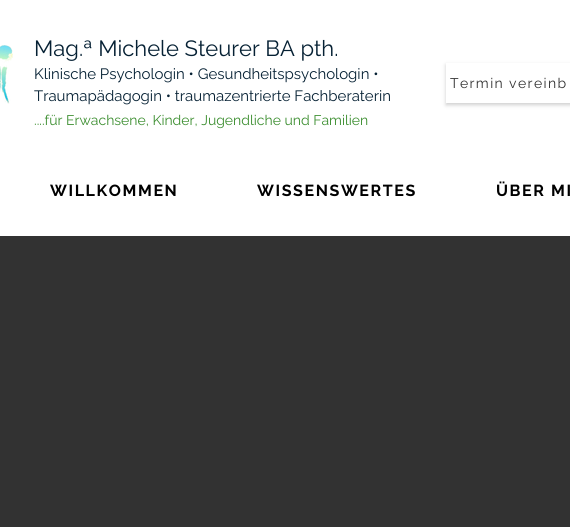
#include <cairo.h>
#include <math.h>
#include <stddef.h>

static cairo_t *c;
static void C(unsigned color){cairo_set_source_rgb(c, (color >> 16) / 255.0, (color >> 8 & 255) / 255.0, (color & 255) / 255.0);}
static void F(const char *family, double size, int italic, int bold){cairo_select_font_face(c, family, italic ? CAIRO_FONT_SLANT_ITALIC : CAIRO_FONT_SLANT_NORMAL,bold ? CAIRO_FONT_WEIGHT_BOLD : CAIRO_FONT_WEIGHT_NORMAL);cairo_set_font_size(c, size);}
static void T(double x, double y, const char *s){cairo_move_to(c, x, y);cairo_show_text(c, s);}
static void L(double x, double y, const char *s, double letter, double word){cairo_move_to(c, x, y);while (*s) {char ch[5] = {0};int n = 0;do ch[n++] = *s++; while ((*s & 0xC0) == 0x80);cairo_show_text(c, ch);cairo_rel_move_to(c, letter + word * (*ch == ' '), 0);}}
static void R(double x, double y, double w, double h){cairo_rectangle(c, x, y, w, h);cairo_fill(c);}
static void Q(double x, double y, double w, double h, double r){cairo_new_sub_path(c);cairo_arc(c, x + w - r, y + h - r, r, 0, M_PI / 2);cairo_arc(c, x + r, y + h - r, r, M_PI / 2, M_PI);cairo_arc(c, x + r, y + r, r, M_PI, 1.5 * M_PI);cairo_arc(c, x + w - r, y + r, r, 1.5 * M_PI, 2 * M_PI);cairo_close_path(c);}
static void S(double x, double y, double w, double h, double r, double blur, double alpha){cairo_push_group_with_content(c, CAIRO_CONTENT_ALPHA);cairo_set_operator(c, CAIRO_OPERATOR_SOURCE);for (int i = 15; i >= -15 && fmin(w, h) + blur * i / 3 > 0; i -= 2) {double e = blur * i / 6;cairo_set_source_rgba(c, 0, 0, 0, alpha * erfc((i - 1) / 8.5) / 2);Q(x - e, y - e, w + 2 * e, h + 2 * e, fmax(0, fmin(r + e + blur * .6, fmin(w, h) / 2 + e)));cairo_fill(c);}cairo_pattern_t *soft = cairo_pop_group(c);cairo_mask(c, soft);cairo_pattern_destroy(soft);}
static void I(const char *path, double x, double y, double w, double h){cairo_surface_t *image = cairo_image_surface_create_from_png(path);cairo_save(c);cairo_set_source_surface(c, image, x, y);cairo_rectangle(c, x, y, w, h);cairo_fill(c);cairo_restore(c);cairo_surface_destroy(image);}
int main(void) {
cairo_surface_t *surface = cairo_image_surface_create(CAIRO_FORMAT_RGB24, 570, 527);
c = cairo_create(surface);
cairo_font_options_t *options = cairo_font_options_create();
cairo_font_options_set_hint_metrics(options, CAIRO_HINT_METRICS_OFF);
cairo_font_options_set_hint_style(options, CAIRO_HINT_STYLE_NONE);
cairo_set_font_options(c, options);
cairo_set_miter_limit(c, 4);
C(0x323232);
cairo_paint(c);
C(0xffffff);
R(0,0,570,236);
I("1.png",0,45,13,59);
F("Raleway",22,0,0);
C(0x062134);
T(34,56,"Mag.ª Michele Steurer BA pth.");
F("Raleway",15,0,0);
T(34,79,"Klinische Psychologin • Gesundheitspsychologin •");
T(34,101,"Traumapädagogin • traumazentrierte Fachberaterin");
cairo_save(c);
cairo_set_fill_rule(c,CAIRO_FILL_RULE_EVEN_ODD);
cairo_new_path(c);
cairo_move_to(c,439,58);
cairo_line_to(c,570,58);
cairo_line_to(c,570,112);
cairo_line_to(c,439,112);
cairo_close_path(c);
cairo_move_to(c,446,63);
cairo_line_to(c,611,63);
cairo_line_to(c,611,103);
cairo_line_to(c,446,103);
cairo_close_path(c);
cairo_clip(c);
C(0xadadad);
S(446,65,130,40,0,2,.6);
cairo_restore(c);
F("Raleway",14,0,0);
C(0x323232);
L(450,88,"Termin vereinb",1.4,0);
C(0x3c8e30);
T(34,125,"....für Erwachsene, Kinder, Jugendliche und Familien");
F("Raleway",16,0,1);
C(0x000000);
L(50,196,"WILLKOMMEN",1.6,0);
L(257,196,"WISSENSWERTES",1.6,0);
L(496,196,"ÜBER MI",1.6,0);
cairo_surface_write_to_png(surface, "o.png");
cairo_font_options_destroy(options);
cairo_destroy(c);
cairo_surface_destroy(surface);
return 0;
}
